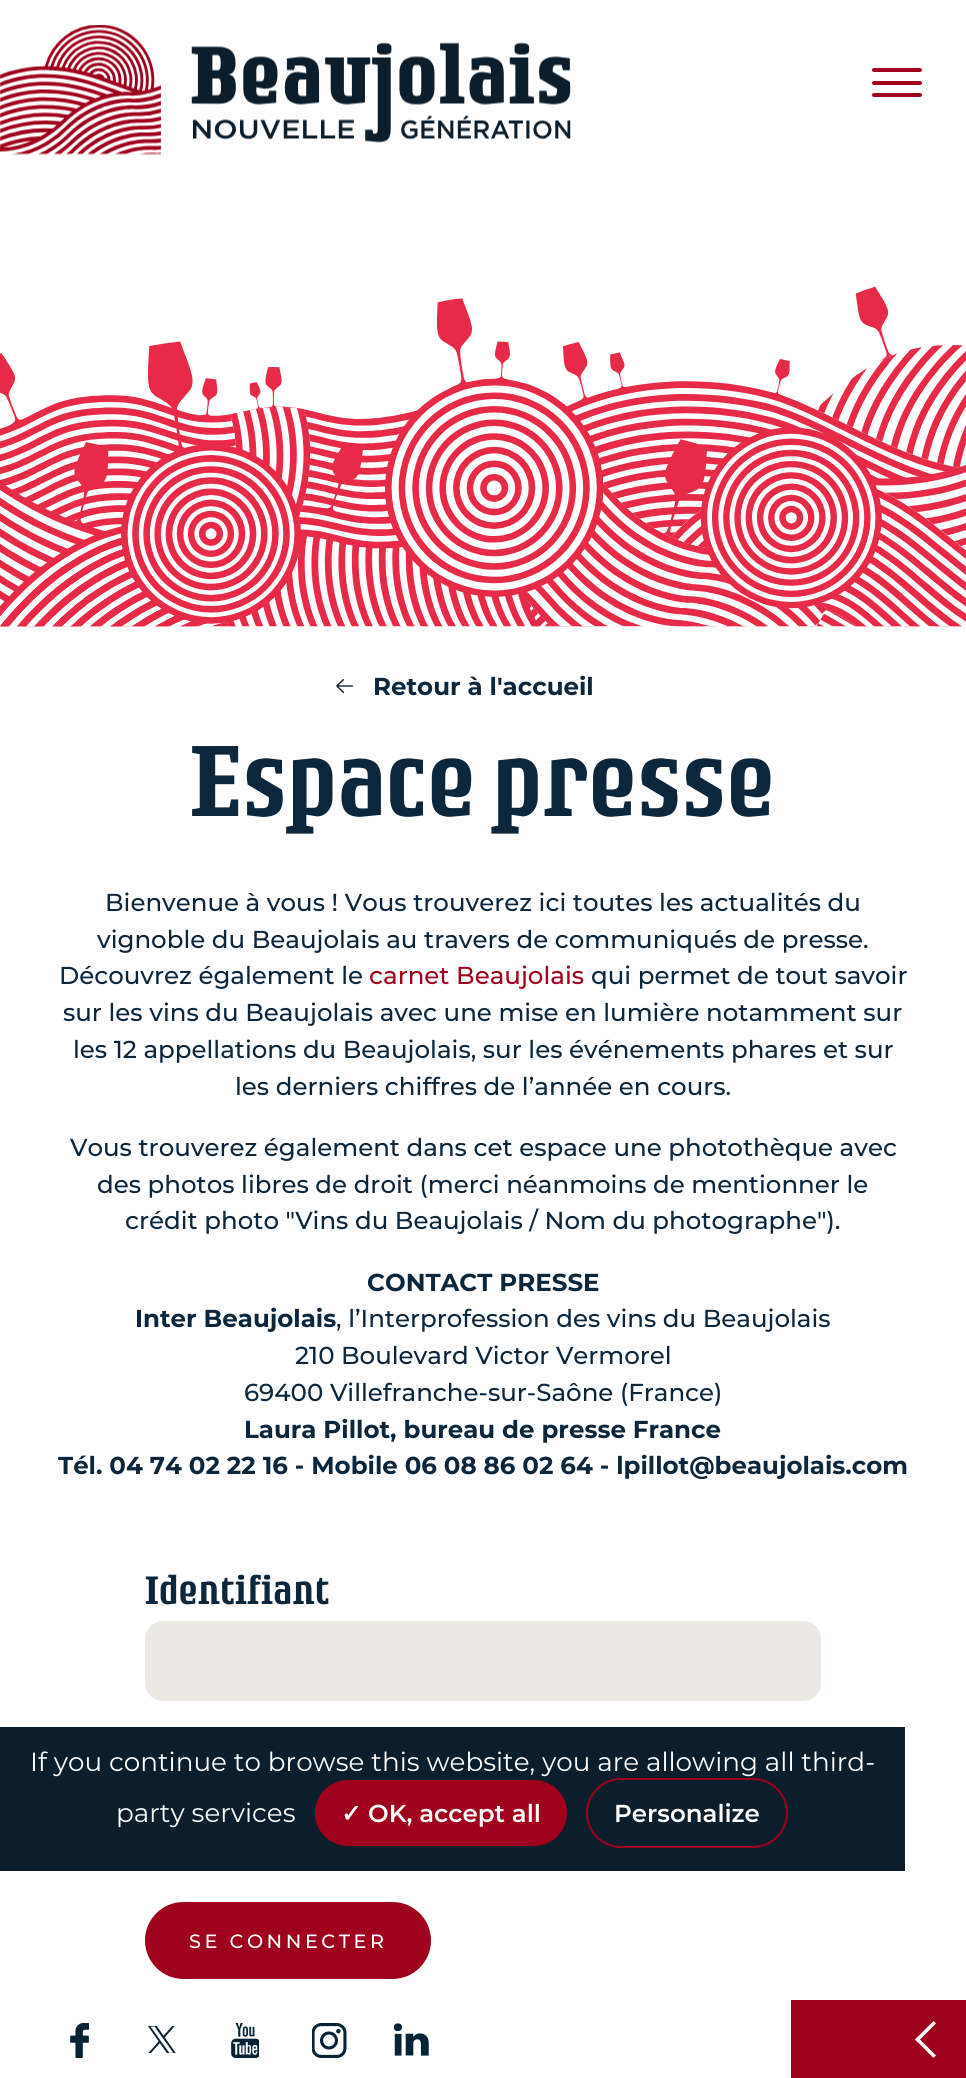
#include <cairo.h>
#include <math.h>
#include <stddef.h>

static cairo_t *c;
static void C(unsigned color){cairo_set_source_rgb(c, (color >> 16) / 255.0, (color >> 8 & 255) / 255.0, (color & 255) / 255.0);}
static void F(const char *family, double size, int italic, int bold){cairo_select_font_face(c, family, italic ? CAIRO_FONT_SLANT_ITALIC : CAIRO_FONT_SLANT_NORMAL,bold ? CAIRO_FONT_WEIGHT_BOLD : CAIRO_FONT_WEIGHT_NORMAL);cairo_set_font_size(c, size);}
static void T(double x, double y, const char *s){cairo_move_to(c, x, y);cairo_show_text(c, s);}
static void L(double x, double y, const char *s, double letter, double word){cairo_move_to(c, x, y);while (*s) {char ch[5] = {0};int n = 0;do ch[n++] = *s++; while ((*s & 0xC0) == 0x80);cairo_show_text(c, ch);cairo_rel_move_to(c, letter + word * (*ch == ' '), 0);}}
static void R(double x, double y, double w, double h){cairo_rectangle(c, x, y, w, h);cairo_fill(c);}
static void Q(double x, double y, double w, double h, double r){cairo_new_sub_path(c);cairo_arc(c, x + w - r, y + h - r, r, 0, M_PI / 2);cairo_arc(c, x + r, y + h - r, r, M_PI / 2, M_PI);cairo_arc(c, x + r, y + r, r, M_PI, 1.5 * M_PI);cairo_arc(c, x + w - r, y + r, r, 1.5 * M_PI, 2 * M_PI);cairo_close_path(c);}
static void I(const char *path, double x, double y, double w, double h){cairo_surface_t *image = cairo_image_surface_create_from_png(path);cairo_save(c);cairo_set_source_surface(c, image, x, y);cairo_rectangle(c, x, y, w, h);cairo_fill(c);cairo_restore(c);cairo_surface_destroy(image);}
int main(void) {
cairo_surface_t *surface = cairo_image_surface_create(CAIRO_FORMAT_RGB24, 966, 2078);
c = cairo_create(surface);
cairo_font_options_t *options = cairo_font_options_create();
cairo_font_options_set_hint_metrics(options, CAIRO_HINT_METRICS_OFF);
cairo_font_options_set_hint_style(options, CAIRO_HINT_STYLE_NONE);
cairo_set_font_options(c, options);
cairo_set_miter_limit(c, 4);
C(0xffffff);
cairo_paint(c);
I("1.png",0,25,571,130);
C(0x9f001c);
Q(872,68,50,4,2);
cairo_fill(c);
Q(872,81,50,4,2);
cairo_fill(c);
Q(872,93,50,4,2);
cairo_fill(c);
I("2.png",0,286,966,341);
I("3.png",336,679,18,14);
F("Montserrat",24.5,0,1);
C(0x0c263c);
T(373,695,"Retour à l'accueil");
F("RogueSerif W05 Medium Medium",106.75,0,0);
T(190,816,"Espace presse");
F("Montserrat Medium",24.5,0,0);
T(105,911,"Bienvenue à vous ! Vous trouverez ici toutes les actualités du");
T(97,948,"vignoble du Beaujolais au travers de communiqués de presse.");
T(59,984,"Découvrez également le");
C(0x9f001c);
T(369,984,"carnet Beaujolais");
C(0x0c263c);
T(591,984,"qui permet de tout savoir");
T(63,1021,"sur les vins du Beaujolais avec une mise en lumière notamment sur");
T(73,1058,"les 12 appellations du Beaujolais, sur les événements phares et sur");
T(235,1095,"les derniers chiffres de l’année en cours.");
T(70,1156,"Vous trouverez également dans cet espace une photothèque avec");
T(97,1193,"des photos libres de droit (merci néanmoins de mentionner le");
T(125,1229,"crédit photo \"Vins du Beaujolais / Nom du photographe\").");
F("Montserrat",24.5,0,1);
T(367,1291,"CONTACT PRESSE");
T(135,1327,"Inter Beaujolais");
F("Montserrat Medium",24.5,0,0);
T(336,1327,", l’Interprofession des vins du Beaujolais");
T(295,1364,"210 Boulevard Victor Vermorel");
T(244,1401,"69400 Villefranche-sur-Saône (France)");
F("Montserrat",24.5,0,1);
T(244,1438,"Laura Pillot, bureau de presse France");
T(58,1474,"Tél. 04 74 02 22 16 - Mobile 06 08 86 02 64 - lpillot@beaujolais.com");
F("RogueSerif W05 Medium Medium",42,0,0);
T(145,1604,"Identifiant");
C(0xece8e3);
Q(145,1621,676,80,18);
cairo_fill(c);
C(0x9f001c);
Q(145,1902,286,77,38.5);
cairo_fill(c);
F("Montserrat Medium",19.25,0,0);
C(0xffffff);
L(189,1948,"SE CONNECTER",3.5,0);
I("4.png",70,2023,19,35);
I("5.png",148,2026,28,27);
I("6.png",231,2023,28,35);
I("7.png",312,2023,35,35);
I("8.png",394,2023,35,33);
C(0x9f001c);
R(791,2000,175,78);
C(0xffffff);
cairo_new_path(c);
cairo_move_to(c,917.5,2037);
cairo_line_to(c,936,2055.5);
cairo_line_to(c,933.5,2058);
cairo_line_to(c,915,2039.5);
cairo_close_path(c);
cairo_fill(c);
cairo_new_path(c);
cairo_move_to(c,933.5,2021);
cairo_line_to(c,936,2023.5);
cairo_line_to(c,917.5,2042);
cairo_line_to(c,915,2039.5);
cairo_close_path(c);
cairo_fill(c);
C(0x0c1e2b);
R(0,1727,905,144);
F("Montserrat",26.25,0,0);
C(0xffffff);
T(30,1771,"If you continue to browse this website, you are allowing all third-");
T(116,1822,"party services");
C(0x9f001c);
Q(315,1780,252,66,33);
cairo_fill(c);
F("DejaVu Sans",24.5,0,1);
C(0xffffff);
T(341,1822,"✓");
F("Montserrat SemiBold",24.5,0,0);
T(368,1822,"OK, accept all");
Q(587,1779,200,68,34);
C(0x9f001c);
cairo_stroke(c);
C(0xffffff);
T(614,1822,"Personalize");
cairo_surface_write_to_png(surface, "o.png");
cairo_font_options_destroy(options);
cairo_destroy(c);
cairo_surface_destroy(surface);
return 0;
}
